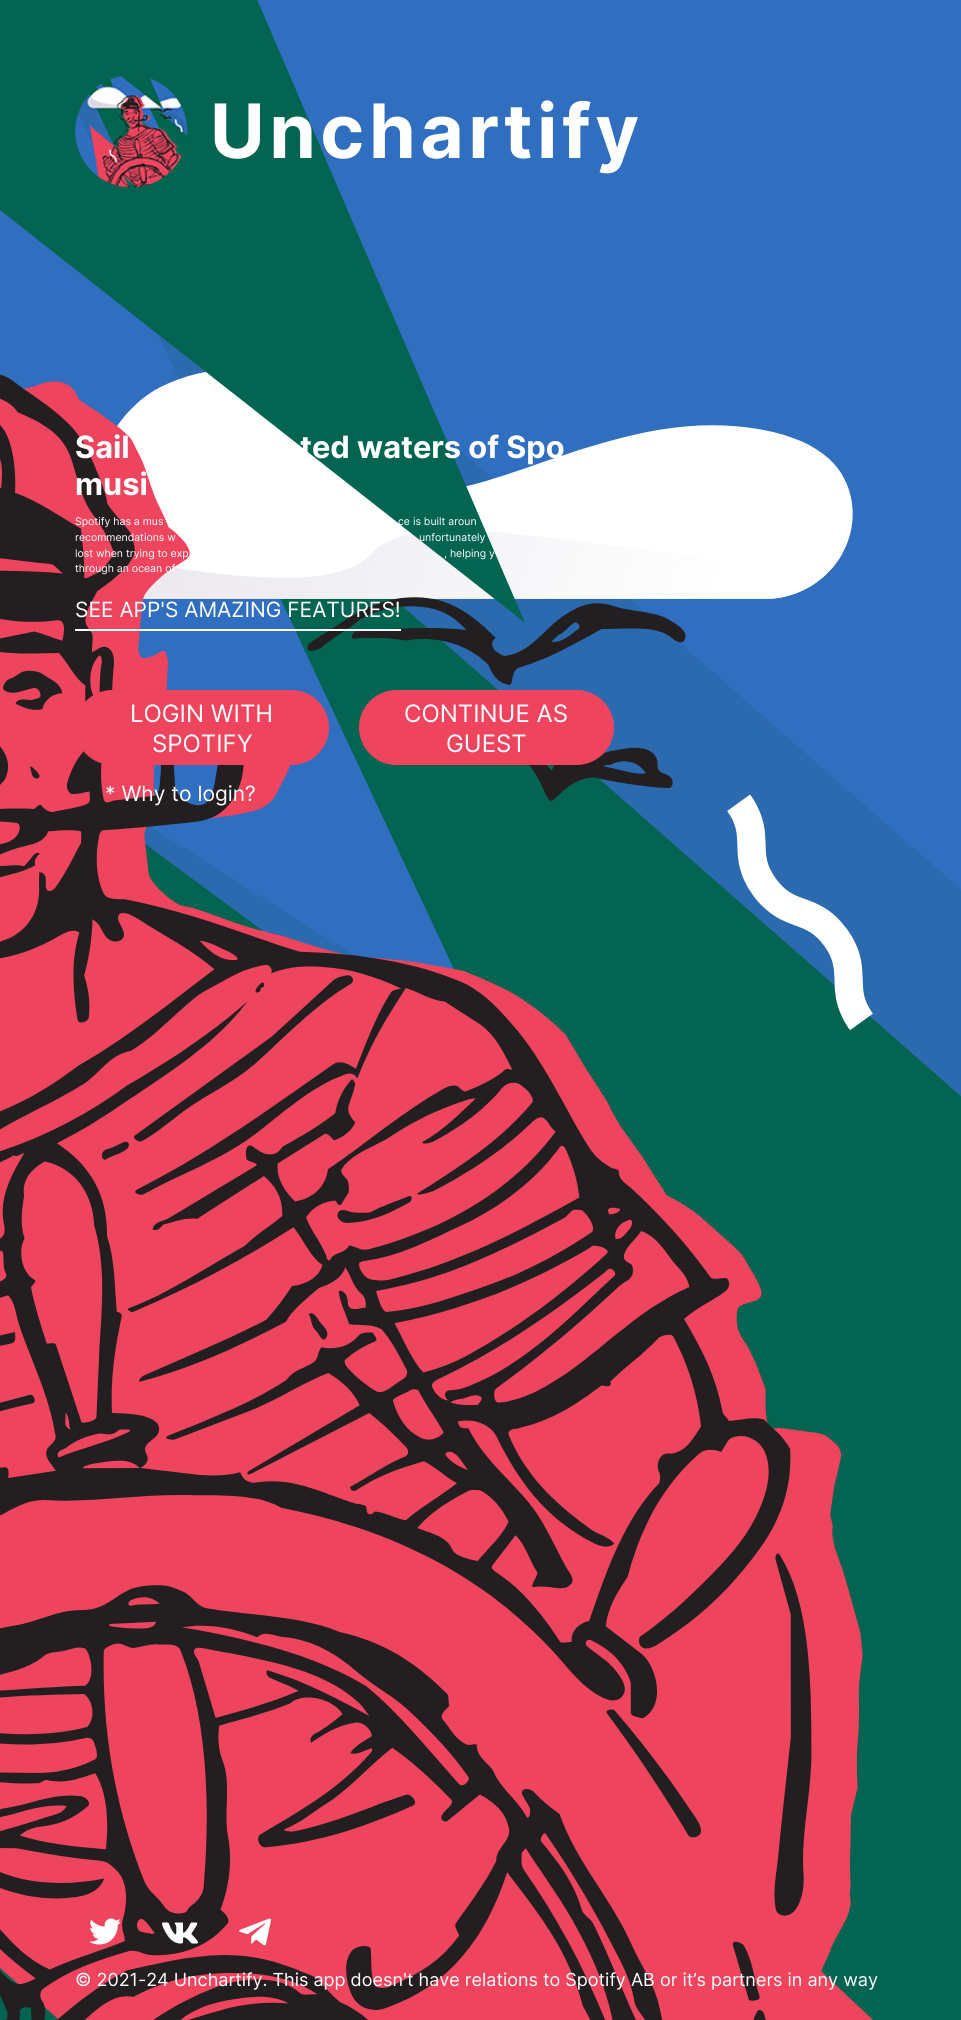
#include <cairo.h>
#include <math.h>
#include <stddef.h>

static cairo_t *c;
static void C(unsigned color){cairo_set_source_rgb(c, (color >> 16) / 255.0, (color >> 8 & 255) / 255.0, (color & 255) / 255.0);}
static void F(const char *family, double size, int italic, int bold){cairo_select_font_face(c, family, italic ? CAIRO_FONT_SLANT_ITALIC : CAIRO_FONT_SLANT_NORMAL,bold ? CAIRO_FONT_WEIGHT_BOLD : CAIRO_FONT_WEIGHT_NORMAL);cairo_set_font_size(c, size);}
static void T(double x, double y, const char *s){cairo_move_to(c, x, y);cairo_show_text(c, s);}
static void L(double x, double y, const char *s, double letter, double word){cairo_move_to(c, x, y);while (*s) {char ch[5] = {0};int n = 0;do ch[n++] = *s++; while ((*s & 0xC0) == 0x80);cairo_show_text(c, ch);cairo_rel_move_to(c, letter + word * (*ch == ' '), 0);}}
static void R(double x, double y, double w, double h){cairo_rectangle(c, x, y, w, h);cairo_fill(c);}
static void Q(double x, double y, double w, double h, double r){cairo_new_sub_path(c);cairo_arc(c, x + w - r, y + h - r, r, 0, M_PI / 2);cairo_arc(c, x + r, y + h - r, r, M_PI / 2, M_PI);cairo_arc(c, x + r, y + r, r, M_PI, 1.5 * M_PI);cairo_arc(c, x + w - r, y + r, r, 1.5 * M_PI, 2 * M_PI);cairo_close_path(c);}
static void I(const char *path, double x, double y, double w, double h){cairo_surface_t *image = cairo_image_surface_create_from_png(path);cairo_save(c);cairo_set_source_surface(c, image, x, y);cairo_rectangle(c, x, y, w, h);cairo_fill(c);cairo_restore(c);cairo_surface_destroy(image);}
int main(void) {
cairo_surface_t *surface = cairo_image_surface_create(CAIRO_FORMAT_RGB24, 961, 2020);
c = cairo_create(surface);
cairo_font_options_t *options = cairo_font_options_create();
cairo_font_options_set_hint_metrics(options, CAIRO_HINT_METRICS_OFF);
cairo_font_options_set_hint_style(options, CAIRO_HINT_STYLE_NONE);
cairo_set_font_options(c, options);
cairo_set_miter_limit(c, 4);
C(0x306ebf);
cairo_paint(c);
I("1.png",0,0,961,2020);
I("2.png",75,76,113,112);
F("Inter",75,0,1);
C(0xffffff);
L(210,158,"Unchartify",4.5,0);
F("Inter",30.75,0,1);
T(75,458,"Sail");
T(300,458,"ted waters of Spo");
T(75,495,"musi");
F("Inter",10.5,0,0);
T(75,525,"Spotify has a mus");
T(398,525,"ce is built aroun");
T(75,541,"recommendations w");
T(419,541,"unfortunately");
T(75,557,"lost when trying to exp");
T(444,557,", helping y");
T(75,572,"through an ocean of");
R(75,629,326,2);
F("Inter",21,0,0);
T(75,617,"SEE APP'S AMAZING FEATURES!");
C(0xee445e);
Q(75,690,254,75,37.5);
cairo_fill(c);
F("Inter",24,0,0);
C(0xffffff);
T(130,722,"LOGIN WITH");
T(152,752,"SPOTIFY");
C(0xee445e);
Q(359,690,255,75,37.5);
cairo_fill(c);
C(0xffffff);
T(404,722,"CONTINUE AS");
T(446,752,"GUEST");
F("Inter",21,0,0);
T(105,801,"* Why to login?");
I("3.png",89,1918,32,27);
I("4.png",162,1922,36,22);
I("5.png",239,1918,32,28);
F("Inter",18,0,0);
T(75,1986,"© 2021-24 Unchartify. This app doesn't have relations to Spotify AB or it’s partners in any way");
cairo_surface_write_to_png(surface, "o.png");
cairo_font_options_destroy(options);
cairo_destroy(c);
cairo_surface_destroy(surface);
return 0;
}
